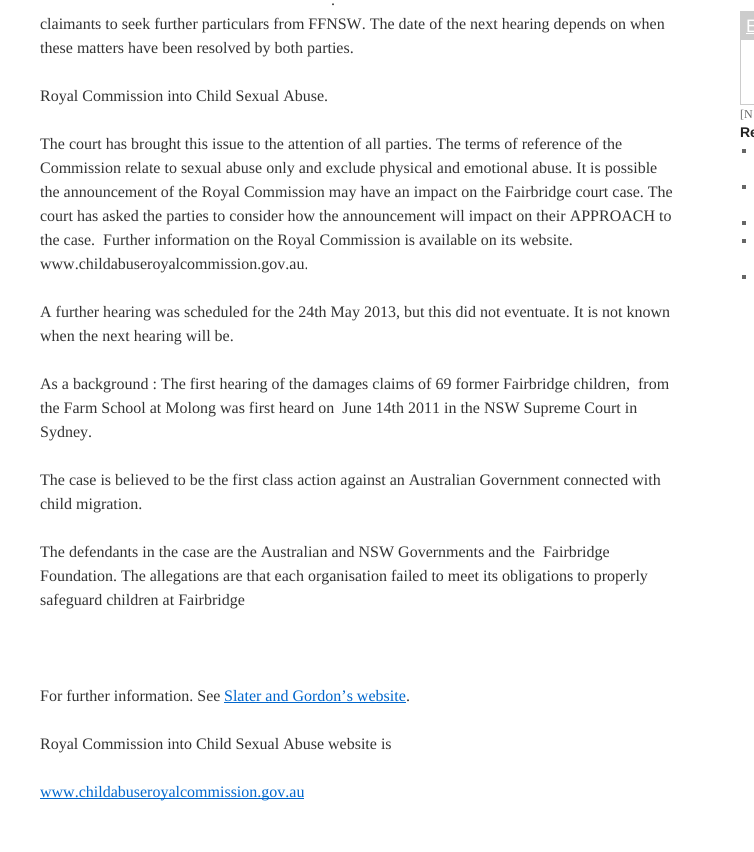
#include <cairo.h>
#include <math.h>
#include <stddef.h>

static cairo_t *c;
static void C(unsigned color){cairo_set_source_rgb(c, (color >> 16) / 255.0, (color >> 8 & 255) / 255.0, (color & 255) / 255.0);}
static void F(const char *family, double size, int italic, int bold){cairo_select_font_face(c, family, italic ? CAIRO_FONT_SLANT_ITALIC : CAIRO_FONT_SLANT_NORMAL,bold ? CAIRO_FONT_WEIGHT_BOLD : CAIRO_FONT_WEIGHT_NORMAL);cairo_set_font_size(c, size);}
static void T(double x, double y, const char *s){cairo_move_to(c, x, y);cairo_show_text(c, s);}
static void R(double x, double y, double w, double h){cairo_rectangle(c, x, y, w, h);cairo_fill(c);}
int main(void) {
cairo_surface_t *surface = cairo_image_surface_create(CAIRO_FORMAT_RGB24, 754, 852);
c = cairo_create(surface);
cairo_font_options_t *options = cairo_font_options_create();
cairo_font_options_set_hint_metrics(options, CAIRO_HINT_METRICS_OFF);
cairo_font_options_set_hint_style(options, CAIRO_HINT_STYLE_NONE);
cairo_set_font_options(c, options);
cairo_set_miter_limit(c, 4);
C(0xffffff);
cairo_paint(c);
F("Liberation Serif",16,0,0);
C(0x333333);
T(331,5,".");
T(40,29,"claimants to seek further particulars from FFNSW. The date of the next hearing depends on when");
T(40,53,"these matters have been resolved by both parties.");
T(40,101,"Royal Commission into Child Sexual Abuse.");
T(40,149,"The court has brought this issue to the attention of all parties. The terms of reference of the");
T(40,173,"Commission relate to sexual abuse only and exclude physical and emotional abuse. It is possible");
T(40,197,"the announcement of the Royal Commission may have an impact on the Fairbridge court case. The");
T(40,221,"court has asked the parties to consider how the announcement will impact on their APPROACH to");
T(40,245,"the case.  Further information on the Royal Commission is available on its website.");
T(40,269,"www.childabuseroyalcommission.gov.au.");
T(40,317,"A further hearing was scheduled for the 24th May 2013, but this did not eventuate. It is not known");
T(40,341,"when the next hearing will be.");
T(40,389,"As a background : The first hearing of the damages claims of 69 former Fairbridge children,  from");
T(40,413,"the Farm School at Molong was first heard on  June 14th 2011 in the NSW Supreme Court in");
T(40,437,"Sydney.");
T(40,485,"The case is believed to be the first class action against an Australian Government connected with");
T(40,509,"child migration.");
T(40,557,"The defendants in the case are the Australian and NSW Governments and the  Fairbridge");
T(40,581,"Foundation. The allegations are that each organisation failed to meet its obligations to properly");
T(40,605,"safeguard children at Fairbridge");
T(40,701,"For further information. See");
C(0x0066cc);
T(224,701,"Slater and Gordon’s website");
R(224,702,182,1);
C(0x333333);
T(406,701,".");
T(40,749,"Royal Commission into Child Sexual Abuse website is");
C(0x0066cc);
R(40,798,264,1);
T(40,797,"www.childabuseroyalcommission.gov.au");
cairo_rectangle(c,740.5,11.5,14,93);
C(0xcccccc);
cairo_set_line_width(c,1);
cairo_stroke(c);
R(741,12,13,28);
F("Liberation Sans",18,0,0);
C(0xffffff);
T(746,32,"E");
R(746,33,8,1);
F("Liberation Serif",12,0,0);
C(0x666666);
T(740,118,"[N");
F("Liberation Sans",14,0,1);
C(0x222222);
T(740,137,"Re");
C(0x666666);
R(742,149,4,4);
R(742,185,4,4);
R(742,221,4,4);
R(742,239,4,4);
R(742,275,4,4);
cairo_surface_write_to_png(surface, "o.png");
cairo_font_options_destroy(options);
cairo_destroy(c);
cairo_surface_destroy(surface);
return 0;
}
